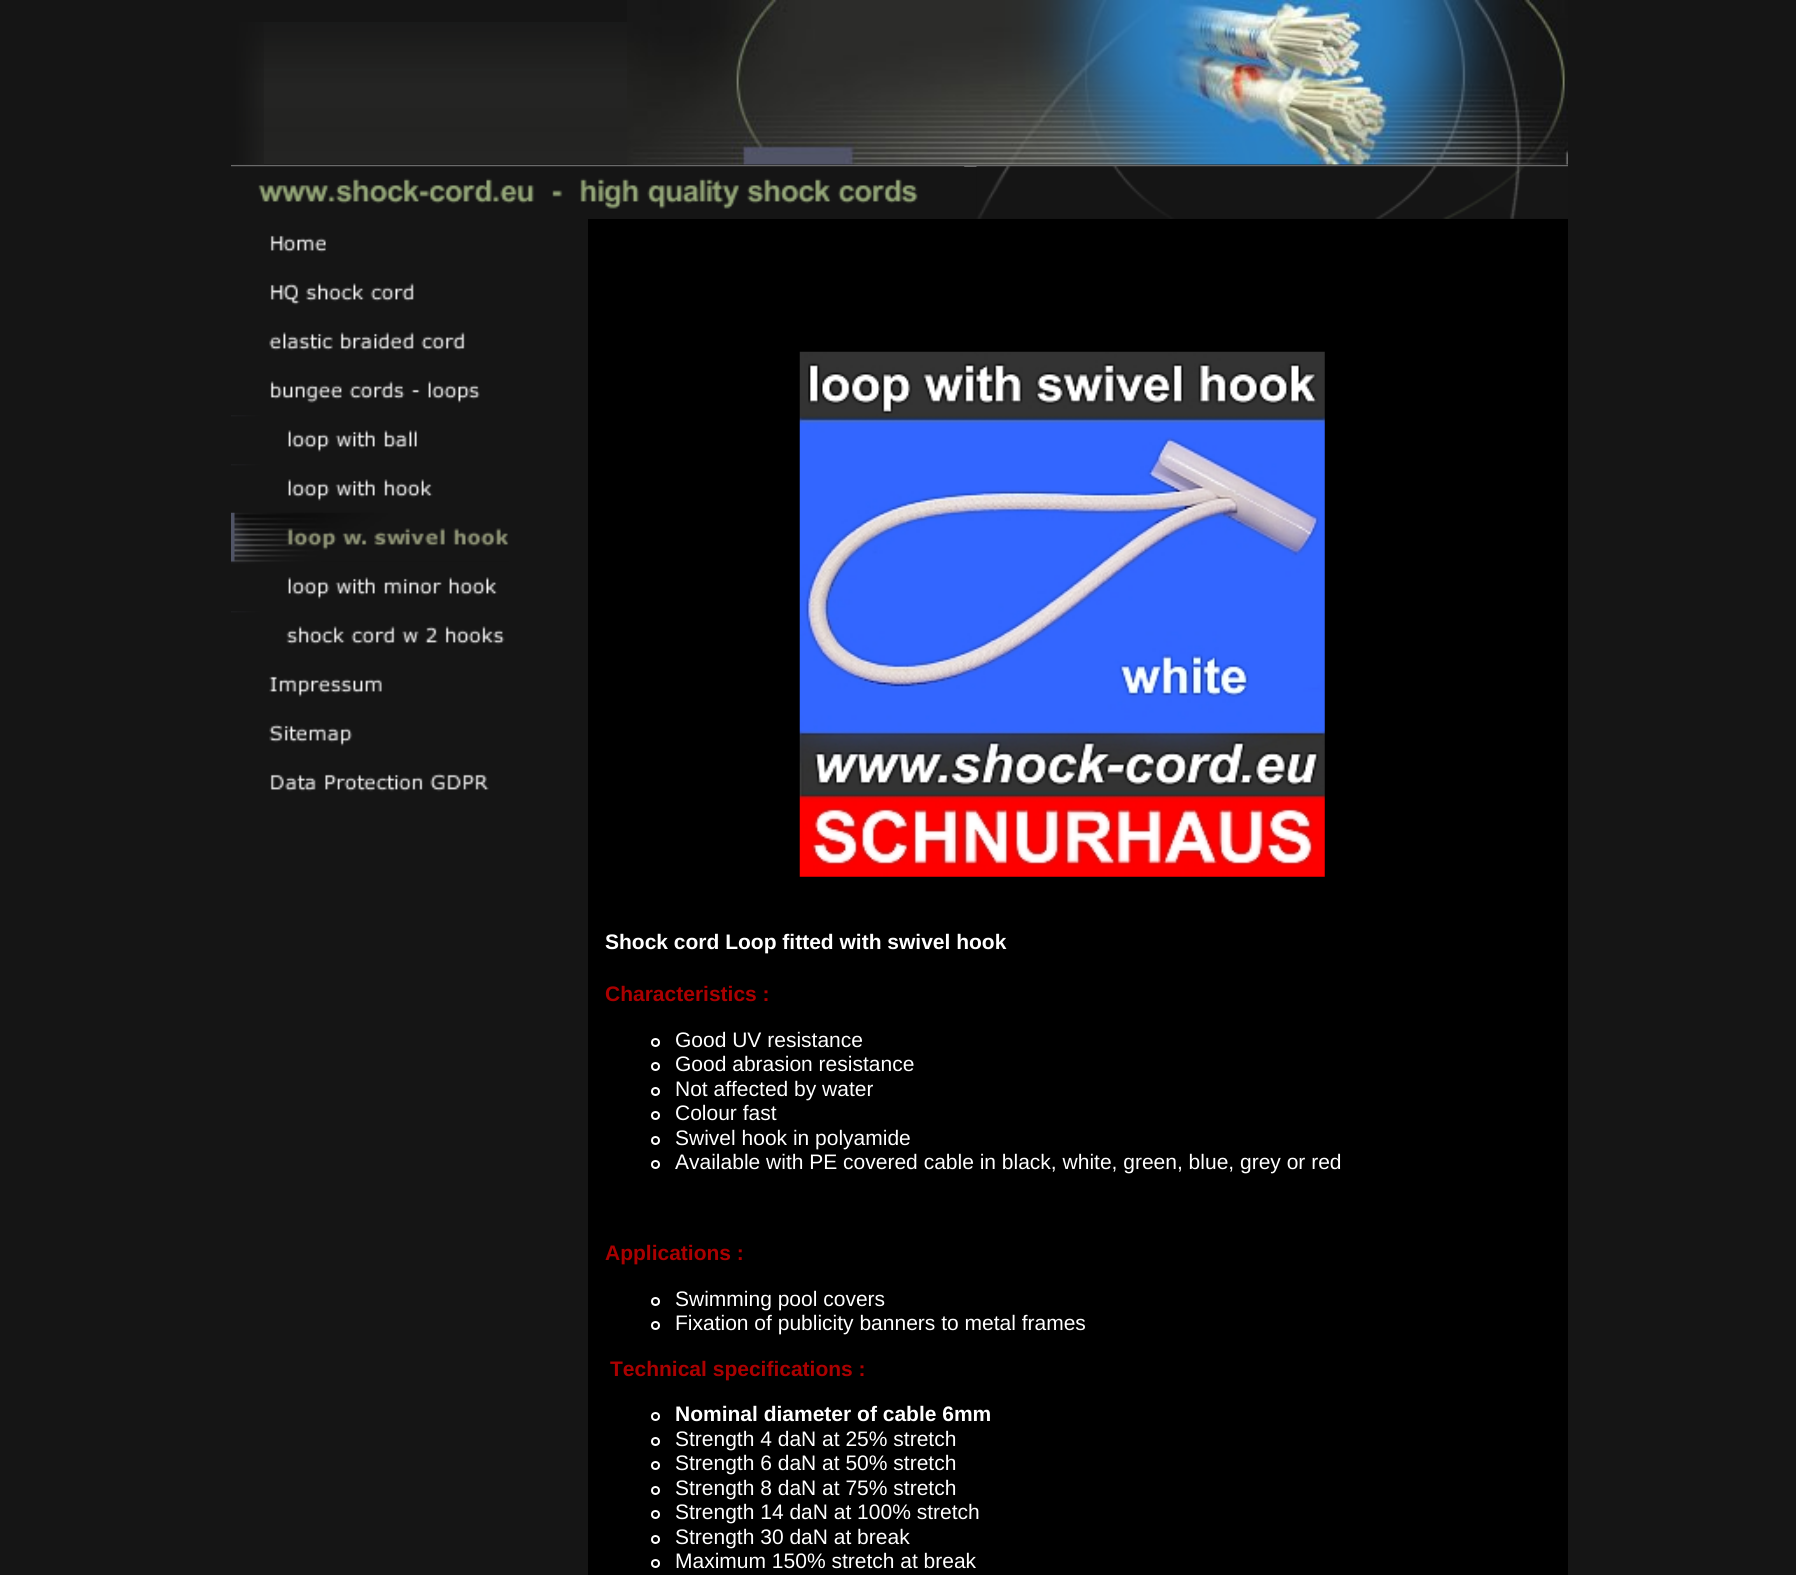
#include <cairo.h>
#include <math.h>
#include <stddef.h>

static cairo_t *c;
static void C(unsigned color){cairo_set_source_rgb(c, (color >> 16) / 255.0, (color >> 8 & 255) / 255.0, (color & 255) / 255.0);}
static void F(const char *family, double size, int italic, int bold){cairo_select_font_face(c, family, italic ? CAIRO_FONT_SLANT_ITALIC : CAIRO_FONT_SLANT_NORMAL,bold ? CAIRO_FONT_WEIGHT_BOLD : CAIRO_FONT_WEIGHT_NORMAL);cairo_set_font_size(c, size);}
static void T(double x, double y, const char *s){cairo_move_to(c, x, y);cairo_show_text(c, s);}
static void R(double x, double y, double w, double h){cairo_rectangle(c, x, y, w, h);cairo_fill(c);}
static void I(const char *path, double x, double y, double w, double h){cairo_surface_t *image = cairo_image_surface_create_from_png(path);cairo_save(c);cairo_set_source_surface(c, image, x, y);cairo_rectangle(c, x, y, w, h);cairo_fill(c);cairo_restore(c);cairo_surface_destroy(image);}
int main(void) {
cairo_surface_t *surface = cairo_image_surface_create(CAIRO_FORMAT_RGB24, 1796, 1575);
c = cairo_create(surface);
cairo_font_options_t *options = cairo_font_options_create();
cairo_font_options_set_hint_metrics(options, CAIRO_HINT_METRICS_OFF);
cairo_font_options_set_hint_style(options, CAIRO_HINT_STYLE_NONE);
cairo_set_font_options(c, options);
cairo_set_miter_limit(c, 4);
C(0x151515);
cairo_paint(c);
I("1.png",231,22,1337,143);
I("2.png",231,22,33,143);
I("3.png",627,0,941,165);
C(0x6a6a6a);
R(231,165,1337,2);
I("4.png",976,166,592,53);
I("5.png",231,166,734,43);
I("6.png",270,235,56,18);
I("7.png",270,283,144,22);
I("8.png",269,332,196,19);
I("9.png",270,381,210,22);
I("10.png",231,415,186,37);
I("11.png",231,464,202,37);
I("12.png",231,512,278,50);
I("13.png",231,561,267,38);
I("14.png",231,611,274,34);
I("15.png",269,676,113,21);
I("16.png",269,724,84,22);
I("17.png",270,773,219,19);
C(0x000000);
R(588,219,980,1356);
I("18.png",799,351,526,526);
F("Liberation Sans",21,0,1);
C(0xffffff);
T(605,949,"Shock cord Loop fitted with swivel hook");
C(0xaa0000);
T(605,1001,"Characteristics :");
cairo_new_path(c);
cairo_arc(c,655.5,1042.5,3.5,0,2 * M_PI);
C(0xffffff);
cairo_stroke(c);
F("Liberation Sans",21,0,0);
T(675,1047,"Good UV resistance");
cairo_new_path(c);
cairo_arc(c,655.5,1066.5,3.5,0,2 * M_PI);
cairo_stroke(c);
T(675,1071,"Good abrasion resistance");
cairo_new_path(c);
cairo_arc(c,655.5,1091.5,3.5,0,2 * M_PI);
cairo_stroke(c);
T(675,1096,"Not affected by water");
cairo_new_path(c);
cairo_arc(c,655.5,1115.5,3.5,0,2 * M_PI);
cairo_stroke(c);
T(675,1120,"Colour fast");
cairo_new_path(c);
cairo_arc(c,655.5,1140.5,3.5,0,2 * M_PI);
cairo_stroke(c);
T(675,1145,"Swivel hook in polyamide");
cairo_new_path(c);
cairo_arc(c,655.5,1164.5,3.5,0,2 * M_PI);
cairo_stroke(c);
T(675,1169,"Available with PE covered cable in black, white, green, blue, grey or red");
F("Liberation Sans",21,0,1);
C(0xaa0000);
T(605,1260,"Applications :");
cairo_new_path(c);
cairo_arc(c,655.5,1301.5,3.5,0,2 * M_PI);
C(0xffffff);
cairo_stroke(c);
F("Liberation Sans",21,0,0);
T(675,1306,"Swimming pool covers");
cairo_new_path(c);
cairo_arc(c,655.5,1325.5,3.5,0,2 * M_PI);
cairo_stroke(c);
T(675,1330,"Fixation of publicity banners to metal frames");
F("Liberation Sans",21,0,1);
C(0xaa0000);
T(610,1376,"Technical specifications :");
cairo_new_path(c);
cairo_arc(c,655.5,1416.5,3.5,0,2 * M_PI);
C(0xffffff);
cairo_stroke(c);
T(675,1421,"Nominal diameter of cable 6mm");
cairo_new_path(c);
cairo_arc(c,655.5,1441.5,3.5,0,2 * M_PI);
cairo_stroke(c);
F("Liberation Sans",21,0,0);
T(675,1446,"Strength 4 daN at 25% stretch");
cairo_new_path(c);
cairo_arc(c,655.5,1465.5,3.5,0,2 * M_PI);
cairo_stroke(c);
T(675,1470,"Strength 6 daN at 50% stretch");
cairo_new_path(c);
cairo_arc(c,655.5,1490.5,3.5,0,2 * M_PI);
cairo_stroke(c);
T(675,1495,"Strength 8 daN at 75% stretch");
cairo_new_path(c);
cairo_arc(c,655.5,1514.5,3.5,0,2 * M_PI);
cairo_stroke(c);
T(675,1519,"Strength 14 daN at 100% stretch");
cairo_new_path(c);
cairo_arc(c,655.5,1539.5,3.5,0,2 * M_PI);
cairo_stroke(c);
T(675,1544,"Strength 30 daN at break");
cairo_new_path(c);
cairo_arc(c,655.5,1563.5,3.5,0,2 * M_PI);
cairo_stroke(c);
T(675,1568,"Maximum 150% stretch at break");
cairo_surface_write_to_png(surface, "o.png");
cairo_font_options_destroy(options);
cairo_destroy(c);
cairo_surface_destroy(surface);
return 0;
}
